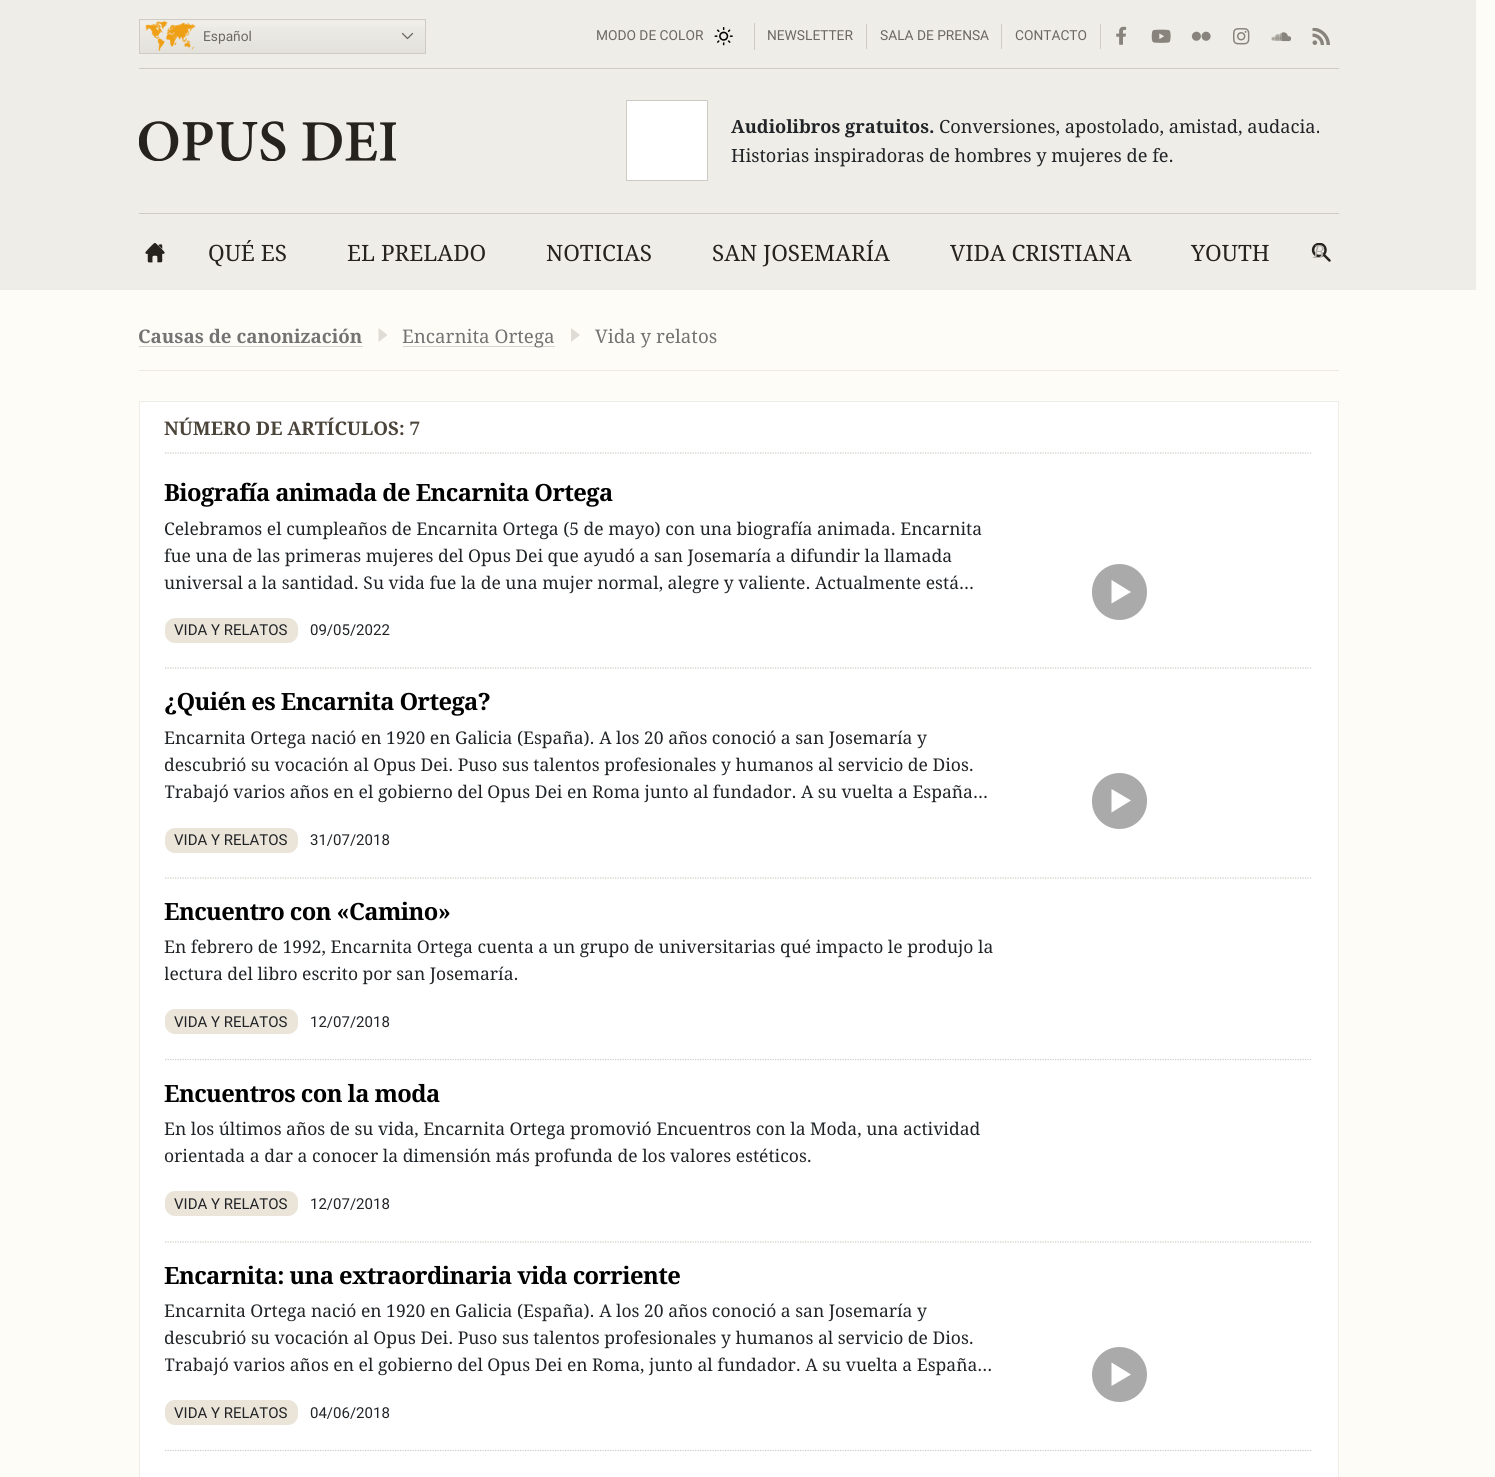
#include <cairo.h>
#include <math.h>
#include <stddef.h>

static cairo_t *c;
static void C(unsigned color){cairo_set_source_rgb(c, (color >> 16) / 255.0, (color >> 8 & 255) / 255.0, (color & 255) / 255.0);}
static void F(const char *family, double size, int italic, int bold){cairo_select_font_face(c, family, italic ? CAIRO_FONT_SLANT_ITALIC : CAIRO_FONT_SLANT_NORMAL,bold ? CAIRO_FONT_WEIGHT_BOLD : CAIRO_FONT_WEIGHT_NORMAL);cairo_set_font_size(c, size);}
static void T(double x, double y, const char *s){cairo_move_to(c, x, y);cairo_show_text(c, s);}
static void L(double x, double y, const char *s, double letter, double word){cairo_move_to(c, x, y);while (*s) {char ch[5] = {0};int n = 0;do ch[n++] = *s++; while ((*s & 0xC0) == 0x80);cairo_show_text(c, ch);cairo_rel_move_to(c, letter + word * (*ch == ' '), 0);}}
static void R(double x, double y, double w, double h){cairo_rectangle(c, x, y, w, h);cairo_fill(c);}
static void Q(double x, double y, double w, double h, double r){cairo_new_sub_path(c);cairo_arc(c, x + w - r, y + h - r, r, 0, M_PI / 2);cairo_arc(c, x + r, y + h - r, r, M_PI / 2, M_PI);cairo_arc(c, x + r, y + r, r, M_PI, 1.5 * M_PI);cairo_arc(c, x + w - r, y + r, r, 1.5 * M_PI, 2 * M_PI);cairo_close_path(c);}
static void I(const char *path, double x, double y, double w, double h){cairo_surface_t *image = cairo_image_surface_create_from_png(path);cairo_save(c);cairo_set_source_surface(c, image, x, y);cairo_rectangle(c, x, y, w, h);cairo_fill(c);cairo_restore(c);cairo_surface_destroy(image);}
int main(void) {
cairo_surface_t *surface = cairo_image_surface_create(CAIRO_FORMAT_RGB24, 1495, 1477);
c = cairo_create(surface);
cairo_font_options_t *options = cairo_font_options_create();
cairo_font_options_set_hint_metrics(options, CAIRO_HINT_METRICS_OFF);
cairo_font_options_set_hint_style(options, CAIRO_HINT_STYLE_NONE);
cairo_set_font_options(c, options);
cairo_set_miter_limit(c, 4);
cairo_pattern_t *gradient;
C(0xfefcf6);
cairo_paint(c);
C(0xefede7);
R(0,0,1476,290);
C(0xcecbc4);
R(139,68,1200,1);
gradient = cairo_pattern_create_linear(283,20,283,53);
cairo_pattern_add_color_stop_rgba(gradient,0,0.937,0.929,0.906,1);
cairo_pattern_add_color_stop_rgba(gradient,1,0.89,0.882,0.859,1);
cairo_set_source(c,gradient);
cairo_pattern_destroy(gradient);
R(140,27,285,26);
cairo_rectangle(c,139.5,19.5,286,34);
C(0xcecbc4);
cairo_set_line_width(c,1);
cairo_stroke(c);
I("1.png",145,21,51,30);
cairo_new_path(c);
cairo_move_to(c,412.5,33.5);
cairo_line_to(c,407.5,38.5);
cairo_line_to(c,402.5,33.5);
C(0x6b6864);
cairo_set_line_width(c,1.3);
cairo_set_line_cap(c,CAIRO_LINE_CAP_ROUND);
cairo_set_line_join(c,CAIRO_LINE_JOIN_ROUND);
cairo_stroke(c);
F("Roboto",13.75,0,0);
T(203,41,"Español");
C(0xcecbc4);
R(754,23,1,27);
C(0x6b6864);
T(596,40,"MODO DE COLOR");
I("2.png",714,27,19,19);
C(0xcecbc4);
R(866,24,1,25);
C(0x6b6864);
T(767,40,"NEWSLETTER");
C(0xcecbc4);
R(1001,24,1,25);
C(0x6b6864);
T(880,40,"SALA DE PRENSA");
C(0xcecbc4);
R(1100,24,1,25);
C(0x6b6864);
T(1015,40,"CONTACTO");
I("3.png",1116,26,11,19);
I("4.png",1151,29,20,14);
I("5.png",1191,31,20,10);
I("6.png",1233,28,17,17);
I("7.png",1271,32,20,10);
I("8.png",1312,28,18,17);
C(0xcecbc4);
R(139,213,1200,1);
I("9.png",139,121,257,40);
C(0xffffff);
cairo_rectangle(c,626.5,100.5,81,80);
cairo_fill_preserve(c);
C(0xcecbc4);
cairo_set_line_width(c,1);
cairo_set_line_cap(c,CAIRO_LINE_CAP_BUTT);
cairo_set_line_join(c,CAIRO_LINE_JOIN_MITER);
cairo_stroke(c);
F("Droid Serif",18.2,0,1);
C(0x212427);
T(731,133,"Audiolibros gratuitos.");
F("Droid Serif",18.2,0,0);
T(939,133,"Conversiones, apostolado, amistad, audacia.");
T(731,162,"Historias inspiradoras de hombres y mujeres de fe.");
I("10.png",145,243,20,20);
F("Droid Serif",22.5,0,0);
C(0x26221e);
T(208,261,"QUÉ ES");
T(347,261,"EL PRELADO");
T(546,261,"NOTICIAS");
T(712,261,"SAN JOSEMARÍA");
T(950,261,"VIDA CRISTIANA");
T(1191,261,"YOUTH");
cairo_save(c);
cairo_rectangle(c,1311,243,20,20);
cairo_clip(c);
cairo_new_path(c);
cairo_move_to(c,1324,255);
cairo_line_to(c,1329.5,260.5);
cairo_move_to(c,1319.5,244);
cairo_curve_to(c,1327.5,244,1327.5,256,1319.5,256);
cairo_curve_to(c,1311,256,1311,244,1319.5,244);
cairo_close_path(c);
cairo_set_line_width(c,2.5);
cairo_set_line_cap(c,CAIRO_LINE_CAP_ROUND);
cairo_stroke(c);
cairo_restore(c);
F("Droid Serif",17.5,1,0);
C(0xb4b1ac);
T(1313,258,"B");
C(0xece9e3);
R(139,370,1200,1);
F("Droid Serif",18.75,0,1);
C(0x737373);
T(138,343,"Causas de canonización");
C(0xd6d5d1);
R(139,346,224,1);
C(0xdfdcd6);
cairo_new_path(c);
cairo_move_to(c,378.5,328);
cairo_line_to(c,387.5,335);
cairo_line_to(c,378.5,342);
cairo_close_path(c);
cairo_fill(c);
C(0xd6d5d1);
R(403,346,152,1);
F("Droid Serif",18.75,0,0);
C(0x737373);
T(402,343,"Encarnita Ortega");
C(0xdfdcd6);
cairo_new_path(c);
cairo_move_to(c,571,328);
cairo_line_to(c,580,335);
cairo_line_to(c,571,342);
cairo_close_path(c);
cairo_fill(c);
C(0x737373);
T(595,343,"Vida y relatos");
C(0xffffff);
R(140,402,1198,1075);
C(0xefede7);
R(139,401,1200,1);
R(1338,401,1,1076);
R(139,401,1,1076);
cairo_new_path(c);
cairo_move_to(c,165,453);
cairo_line_to(c,1312.5,453);
C(0xcecbc4);
cairo_set_line_width(c,1.2);
cairo_set_dash(c,(double[]){1.25,1.25},2,0);
cairo_stroke(c);
F("Droid Serif",18.75,0,1);
C(0x4b443a);
T(164,435,"NÚMERO DE ARTÍCULOS: 7");
cairo_new_path(c);
cairo_move_to(c,165,668);
cairo_line_to(c,1312.5,668);
C(0xcecbc4);
cairo_stroke(c);
F("Droid Serif",23.75,0,1);
C(0x000000);
L(164,501,"Biografía animada de Encarnita Ortega",-.6,0);
F("Droid Serif",17.5,0,0);
C(0x212427);
T(164,535,"Celebramos el cumpleaños de Encarnita Ortega (5 de mayo) con una biografía animada. Encarnita");
T(164,562,"fue una de las primeras mujeres del Opus Dei que ayudó a san Josemaría a difundir la llamada");
T(164,589,"universal a la santidad. Su vida fue la de una mujer normal, alegre y valiente. Actualmente está...");
C(0xebe4d9);
Q(165,618,133,25,10);
cairo_fill(c);
F("Roboto",15,0,0);
C(0x212427);
T(174,635,"VIDA Y RELATOS");
T(310,635,"09/05/2022");
C(0xaaaaaa);
Q(1090,562,59,60,29.5);
cairo_fill_preserve(c);
C(0xffffff);
cairo_set_line_width(c,4);
cairo_set_dash(c,NULL,0,0);
cairo_stroke(c);
cairo_new_path(c);
cairo_move_to(c,1111.5,580);
cairo_line_to(c,1131,592);
cairo_line_to(c,1111.5,603.5);
cairo_close_path(c);
cairo_fill(c);
cairo_new_path(c);
cairo_move_to(c,165,878);
cairo_line_to(c,1312.5,878);
C(0xcecbc4);
cairo_set_line_width(c,1.2);
cairo_set_dash(c,(double[]){1.25,1.25},2,0);
cairo_stroke(c);
F("Droid Serif",23.75,0,1);
C(0x000000);
L(164,710,"¿Quién es Encarnita Ortega?",-.6,0);
F("Droid Serif",17.5,0,0);
C(0x212427);
T(164,744,"Encarnita Ortega nació en 1920 en Galicia (España). A los 20 años conoció a san Josemaría y");
T(164,771,"descubrió su vocación al Opus Dei. Puso sus talentos profesionales y humanos al servicio de Dios.");
cairo_save(c);
cairo_rectangle(c,165,725,838,81);
cairo_clip(c);
T(164,798,"Trabajó varios años en el gobierno del Opus Dei en Roma junto al fundador. A su vuelta a España...");
cairo_restore(c);
C(0xebe4d9);
Q(165,828,133,25,10);
cairo_fill(c);
F("Roboto",15,0,0);
C(0x212427);
T(174,845,"VIDA Y RELATOS");
T(310,845,"31/07/2018");
C(0xaaaaaa);
Q(1090,771,59,60,29.5);
cairo_fill_preserve(c);
C(0xffffff);
cairo_set_line_width(c,4);
cairo_set_dash(c,NULL,0,0);
cairo_stroke(c);
cairo_new_path(c);
cairo_move_to(c,1111.5,789);
cairo_line_to(c,1131,800.5);
cairo_line_to(c,1111.5,812.5);
cairo_close_path(c);
cairo_fill(c);
cairo_new_path(c);
cairo_move_to(c,165,1059.5);
cairo_line_to(c,1312.5,1059.5);
C(0xcecbc4);
cairo_set_line_width(c,1.2);
cairo_set_dash(c,(double[]){1.25,1.25},2,0);
cairo_stroke(c);
F("Droid Serif",23.75,0,1);
C(0x000000);
L(164,920,"Encuentro con «Camino»",-.6,0);
F("Droid Serif",17.5,0,0);
C(0x212427);
T(164,953,"En febrero de 1992, Encarnita Ortega cuenta a un grupo de universitarias qué impacto le produjo la");
cairo_save(c);
cairo_rectangle(c,165,934,838,54);
cairo_clip(c);
T(164,980,"lectura del libro escrito por san Josemaría.");
cairo_restore(c);
C(0xebe4d9);
Q(165,1009,133,25,10);
cairo_fill(c);
F("Roboto",15,0,0);
C(0x212427);
T(174,1027,"VIDA Y RELATOS");
T(310,1027,"12/07/2018");
cairo_new_path(c);
cairo_move_to(c,165,1242);
cairo_line_to(c,1312.5,1242);
C(0xcecbc4);
cairo_stroke(c);
F("Droid Serif",23.75,0,1);
C(0x000000);
L(164,1102,"Encuentros con la moda",-.6,0);
F("Droid Serif",17.5,0,0);
C(0x212427);
T(164,1135,"En los últimos años de su vida, Encarnita Ortega promovió Encuentros con la Moda, una actividad");
T(164,1162,"orientada a dar a conocer la dimensión más profunda de los valores estéticos.");
C(0xebe4d9);
Q(165,1191,133,25,10);
cairo_fill(c);
F("Roboto",15,0,0);
C(0x212427);
T(174,1209,"VIDA Y RELATOS");
T(310,1209,"12/07/2018");
cairo_new_path(c);
cairo_move_to(c,165,1450.5);
cairo_line_to(c,1312.5,1450.5);
C(0xcecbc4);
cairo_stroke(c);
F("Droid Serif",23.75,0,1);
C(0x000000);
L(164,1284,"Encarnita: una extraordinaria vida corriente",-.6,0);
F("Droid Serif",17.5,0,0);
C(0x212427);
T(164,1317,"Encarnita Ortega nació en 1920 en Galicia (España). A los 20 años conoció a san Josemaría y");
T(164,1344,"descubrió su vocación al Opus Dei. Puso sus talentos profesionales y humanos al servicio de Dios.");
cairo_save(c);
cairo_rectangle(c,165,1299,838,80);
cairo_clip(c);
T(164,1371,"Trabajó varios años en el gobierno del Opus Dei en Roma, junto al fundador. A su vuelta a España...");
cairo_restore(c);
C(0xebe4d9);
Q(165,1400,133,25,10);
cairo_fill(c);
F("Roboto",15,0,0);
C(0x212427);
T(174,1418,"VIDA Y RELATOS");
T(310,1418,"04/06/2018");
C(0xaaaaaa);
cairo_new_path(c);
cairo_arc(c,1119.5,1374.5,29.5,0,2 * M_PI);
cairo_fill_preserve(c);
C(0xffffff);
cairo_set_line_width(c,4);
cairo_set_dash(c,NULL,0,0);
cairo_stroke(c);
cairo_new_path(c);
cairo_move_to(c,1111.5,1362.5);
cairo_line_to(c,1131,1374.5);
cairo_line_to(c,1111.5,1386);
cairo_close_path(c);
cairo_fill(c);
cairo_surface_write_to_png(surface, "o.png");
cairo_font_options_destroy(options);
cairo_destroy(c);
cairo_surface_destroy(surface);
return 0;
}
